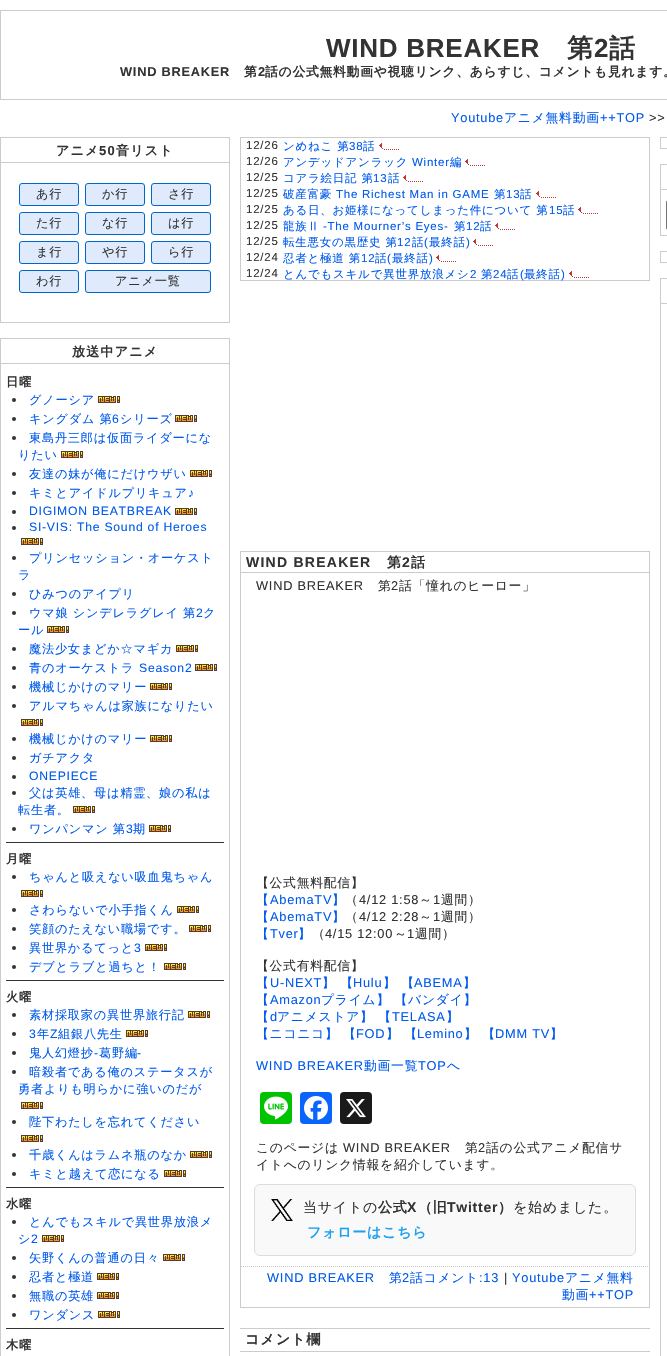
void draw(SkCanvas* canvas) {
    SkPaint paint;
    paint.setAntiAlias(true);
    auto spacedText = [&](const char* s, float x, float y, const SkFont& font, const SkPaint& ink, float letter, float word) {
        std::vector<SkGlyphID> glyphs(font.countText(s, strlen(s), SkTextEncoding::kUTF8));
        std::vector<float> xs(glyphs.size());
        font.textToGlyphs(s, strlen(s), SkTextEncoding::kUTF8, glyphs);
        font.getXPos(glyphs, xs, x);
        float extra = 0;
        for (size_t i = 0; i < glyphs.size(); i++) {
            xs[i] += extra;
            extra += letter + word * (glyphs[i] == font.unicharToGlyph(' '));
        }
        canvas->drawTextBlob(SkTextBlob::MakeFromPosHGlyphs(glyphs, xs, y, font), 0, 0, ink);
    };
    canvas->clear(0xFFFFFFFF);
    paint.setStyle(SkPaint::kStroke_Style);
    paint.setStrokeWidth(1);
    paint.setColor(0xFFCCCCCC);
    canvas->drawRect(SkRect::MakeXYWH(0.5f, 10.5f, 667, 89), paint);
    SkFont font1(fontMgr->matchFamilyStyle("Liberation Sans", SkFontStyle::Bold()), 26);
    font1.setSubpixel(true);
    paint.setStyle(SkPaint::kFill_Style);
    paint.setColor(0xFF333333);
    spacedText("WIND BREAKER", 326, 57, font1, paint, 0.75f, 0);
    SkFont font2(fontMgr->matchFamilyStyle("WenQuanYi Zen Hei", SkFontStyle::Bold()), 26);
    font2.setSubpixel(true);
    spacedText("第", 567, 57, font2, paint, 0.75f, 0);
    spacedText("2", 594, 57, font1, paint, 0.75f, 0);
    spacedText("話", 609, 57, font2, paint, 0.75f, 0);
    SkFont font3(fontMgr->matchFamilyStyle("Liberation Sans", SkFontStyle::Bold()), 12.8f);
    font3.setSubpixel(true);
    spacedText("WIND BREAKER", 120, 76, font3, paint, 0.75f, 0);
    SkFont font4(fontMgr->matchFamilyStyle("WenQuanYi Zen Hei", SkFontStyle::Bold()), 12.8f);
    font4.setSubpixel(true);
    spacedText("第", 244, 76, font4, paint, 0.75f, 0);
    spacedText("2", 258, 76, font3, paint, 0.75f, 0);
    spacedText("話の公式無料動画や視聴リンク、あらすじ、コメントも見れます。", 265, 76, font4, paint, 0.75f, 0);
    SkFont font5(fontMgr->matchFamilyStyle("Liberation Sans", SkFontStyle::Normal()), 12.8f);
    font5.setSubpixel(true);
    paint.setColor(0xFF005AED);
    spacedText("Youtube", 451, 122, font5, paint, 0.75f, 0);
    SkFont font6(fontMgr->matchFamilyStyle("WenQuanYi Zen Hei", SkFontStyle(500, SkFontStyle::kNormal_Width, SkFontStyle::kUpright_Slant)), 12.8f);
    font6.setSubpixel(true);
    spacedText("アニメ無料動画", 504, 122, font6, paint, 0.75f, 0);
    spacedText("++TOP", 600, 122, font5, paint, 0.75f, 0);
    paint.setColor(0xFF333333);
    spacedText(">>", 649, 122, font5, paint, 0.75f, 0);
    paint.setStyle(SkPaint::kStroke_Style);
    paint.setColor(0xFFCCCCCC);
    canvas->drawRect(SkRect::MakeXYWH(0.5f, 137.5f, 229, 185), paint);
    paint.setStyle(SkPaint::kFill_Style);
    canvas->drawRect(SkRect::MakeXYWH(1, 162, 228, 1), paint);
    SkFont font7(fontMgr->matchFamilyStyle("WenQuanYi Zen Hei", SkFontStyle::Bold()), 13);
    font7.setSubpixel(true);
    paint.setColor(0xFF333333);
    spacedText("アニメ", 56, 155, font7, paint, 1.25f, 0);
    SkFont font8(fontMgr->matchFamilyStyle("Liberation Sans", SkFontStyle::Bold()), 13);
    font8.setSubpixel(true);
    spacedText("50", 99, 155, font8, paint, 1.25f, 0);
    spacedText("音リスト", 116, 155, font7, paint, 1.25f, 0);
    paint.setColor(0xFFDFEBFD);
    canvas->drawRoundRect(SkRect::MakeXYWH(19.5f, 183.5f, 59, 22), 2.5f, 2.5f, paint);
    paint.setStyle(SkPaint::kStroke_Style);
    paint.setColor(0xFF0066CC);
    canvas->drawRoundRect(SkRect::MakeXYWH(19.5f, 183.5f, 59, 22), 2.5f, 2.5f, paint);
    SkFont font9(fontMgr->matchFamilyStyle("WenQuanYi Zen Hei", SkFontStyle(500, SkFontStyle::kNormal_Width, SkFontStyle::kUpright_Slant)), 12.2f);
    font9.setSubpixel(true);
    paint.setStyle(SkPaint::kFill_Style);
    paint.setColor(0xFF333333);
    spacedText("あ行", 36, 198, font9, paint, 0.75f, 0);
    paint.setColor(0xFFDFEBFD);
    canvas->drawRoundRect(SkRect::MakeXYWH(85.5f, 183.5f, 59, 22), 2.5f, 2.5f, paint);
    paint.setStyle(SkPaint::kStroke_Style);
    paint.setColor(0xFF0066CC);
    canvas->drawRoundRect(SkRect::MakeXYWH(85.5f, 183.5f, 59, 22), 2.5f, 2.5f, paint);
    paint.setStyle(SkPaint::kFill_Style);
    paint.setColor(0xFF333333);
    spacedText("か行", 102, 198, font9, paint, 0.75f, 0);
    paint.setColor(0xFFDFEBFD);
    canvas->drawRoundRect(SkRect::MakeXYWH(151.5f, 183.5f, 59, 22), 2.5f, 2.5f, paint);
    paint.setStyle(SkPaint::kStroke_Style);
    paint.setColor(0xFF0066CC);
    canvas->drawRoundRect(SkRect::MakeXYWH(151.5f, 183.5f, 59, 22), 2.5f, 2.5f, paint);
    paint.setStyle(SkPaint::kFill_Style);
    paint.setColor(0xFF333333);
    spacedText("さ行", 168, 198, font9, paint, 0.75f, 0);
    paint.setColor(0xFFDFEBFD);
    canvas->drawRoundRect(SkRect::MakeXYWH(19.5f, 212.5f, 59, 22), 2.5f, 2.5f, paint);
    paint.setStyle(SkPaint::kStroke_Style);
    paint.setColor(0xFF0066CC);
    canvas->drawRoundRect(SkRect::MakeXYWH(19.5f, 212.5f, 59, 22), 2.5f, 2.5f, paint);
    paint.setStyle(SkPaint::kFill_Style);
    paint.setColor(0xFF333333);
    spacedText("た行", 36, 227, font9, paint, 0.75f, 0);
    paint.setColor(0xFFDFEBFD);
    canvas->drawRoundRect(SkRect::MakeXYWH(85.5f, 212.5f, 59, 22), 2.5f, 2.5f, paint);
    paint.setStyle(SkPaint::kStroke_Style);
    paint.setColor(0xFF0066CC);
    canvas->drawRoundRect(SkRect::MakeXYWH(85.5f, 212.5f, 59, 22), 2.5f, 2.5f, paint);
    paint.setStyle(SkPaint::kFill_Style);
    paint.setColor(0xFF333333);
    spacedText("な行", 102, 227, font9, paint, 0.75f, 0);
    paint.setColor(0xFFDFEBFD);
    canvas->drawRoundRect(SkRect::MakeXYWH(151.5f, 212.5f, 59, 22), 2.5f, 2.5f, paint);
    paint.setStyle(SkPaint::kStroke_Style);
    paint.setColor(0xFF0066CC);
    canvas->drawRoundRect(SkRect::MakeXYWH(151.5f, 212.5f, 59, 22), 2.5f, 2.5f, paint);
    paint.setStyle(SkPaint::kFill_Style);
    paint.setColor(0xFF333333);
    spacedText("は行", 168, 227, font9, paint, 0.75f, 0);
    paint.setColor(0xFFDFEBFD);
    canvas->drawRoundRect(SkRect::MakeXYWH(19.5f, 241.5f, 59, 22), 2.5f, 2.5f, paint);
    paint.setStyle(SkPaint::kStroke_Style);
    paint.setColor(0xFF0066CC);
    canvas->drawRoundRect(SkRect::MakeXYWH(19.5f, 241.5f, 59, 22), 2.5f, 2.5f, paint);
    paint.setStyle(SkPaint::kFill_Style);
    paint.setColor(0xFF333333);
    spacedText("ま行", 36, 256, font9, paint, 0.75f, 0);
    paint.setColor(0xFFDFEBFD);
    canvas->drawRoundRect(SkRect::MakeXYWH(85.5f, 241.5f, 59, 22), 2.5f, 2.5f, paint);
    paint.setStyle(SkPaint::kStroke_Style);
    paint.setColor(0xFF0066CC);
    canvas->drawRoundRect(SkRect::MakeXYWH(85.5f, 241.5f, 59, 22), 2.5f, 2.5f, paint);
    paint.setStyle(SkPaint::kFill_Style);
    paint.setColor(0xFF333333);
    spacedText("や行", 102, 256, font9, paint, 0.75f, 0);
    paint.setColor(0xFFDFEBFD);
    canvas->drawRoundRect(SkRect::MakeXYWH(151.5f, 241.5f, 59, 22), 2.5f, 2.5f, paint);
    paint.setStyle(SkPaint::kStroke_Style);
    paint.setColor(0xFF0066CC);
    canvas->drawRoundRect(SkRect::MakeXYWH(151.5f, 241.5f, 59, 22), 2.5f, 2.5f, paint);
    paint.setStyle(SkPaint::kFill_Style);
    paint.setColor(0xFF333333);
    spacedText("ら行", 168, 256, font9, paint, 0.75f, 0);
    paint.setColor(0xFFDFEBFD);
    canvas->drawRoundRect(SkRect::MakeXYWH(19.5f, 270.5f, 59, 22), 2.5f, 2.5f, paint);
    paint.setStyle(SkPaint::kStroke_Style);
    paint.setColor(0xFF0066CC);
    canvas->drawRoundRect(SkRect::MakeXYWH(19.5f, 270.5f, 59, 22), 2.5f, 2.5f, paint);
    paint.setStyle(SkPaint::kFill_Style);
    paint.setColor(0xFF333333);
    spacedText("わ行", 36, 285, font9, paint, 0.75f, 0);
    paint.setColor(0xFFDFEBFD);
    canvas->drawRoundRect(SkRect::MakeXYWH(85.5f, 270.5f, 125, 22), 2.5f, 2.5f, paint);
    paint.setStyle(SkPaint::kStroke_Style);
    paint.setColor(0xFF0066CC);
    canvas->drawRoundRect(SkRect::MakeXYWH(85.5f, 270.5f, 125, 22), 2.5f, 2.5f, paint);
    paint.setStyle(SkPaint::kFill_Style);
    paint.setColor(0xFF333333);
    spacedText("アニメ一覧", 115, 285, font9, paint, 0.75f, 0);
    paint.setStyle(SkPaint::kStroke_Style);
    paint.setColor(0xFFCCCCCC);
    canvas->drawRect(SkRect::MakeXYWH(0.5f, 338.5f, 229, 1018), paint);
    paint.setStyle(SkPaint::kFill_Style);
    canvas->drawRect(SkRect::MakeXYWH(1, 363, 228, 1), paint);
    paint.setColor(0xFF333333);
    spacedText("放送中アニメ", 72, 356, font7, paint, 1.25f, 0);
    SkFont font10(fontMgr->matchFamilyStyle("WenQuanYi Zen Hei", SkFontStyle::Bold()), 12.2f);
    font10.setSubpixel(true);
    spacedText("日曜", 6, 386, font10, paint, 0.75f, 0);
    canvas->drawCircle(14, 400, 2, paint);
    paint.setColor(0xFF005AED);
    spacedText("グノーシア", 29, 404, font9, paint, 0.75f, 0);
    canvas->drawImageRect(SkImages::DeferredFromEncodedData(SkData::MakeFromFileName("img1.png")), SkRect::MakeXYWH(98, 396, 22, 7), SkSamplingOptions());
    paint.setColor(0xFF333333);
    canvas->drawCircle(14, 419, 2, paint);
    paint.setColor(0xFF005AED);
    spacedText("キングダム 第", 29, 423, font9, paint, 0.75f, 0);
    SkFont font11(fontMgr->matchFamilyStyle("Liberation Sans", SkFontStyle::Normal()), 12.2f);
    font11.setSubpixel(true);
    spacedText("6", 112, 423, font11, paint, 0.75f, 0);
    spacedText("シリーズ", 120, 423, font9, paint, 0.75f, 0);
    canvas->drawImageRect(SkImages::DeferredFromEncodedData(SkData::MakeFromFileName("img1.png")), SkRect::MakeXYWH(175, 415, 22, 7), SkSamplingOptions());
    paint.setColor(0xFF333333);
    canvas->drawCircle(14, 438, 2, paint);
    paint.setColor(0xFF005AED);
    spacedText("東島丹三郎は仮面ライダーにな", 29, 442, font9, paint, 0.75f, 0);
    spacedText("りたい", 18, 459, font9, paint, 0.75f, 0);
    canvas->drawImageRect(SkImages::DeferredFromEncodedData(SkData::MakeFromFileName("img1.png")), SkRect::MakeXYWH(61, 451, 22, 7), SkSamplingOptions());
    paint.setColor(0xFF333333);
    canvas->drawCircle(14, 474, 2, paint);
    paint.setColor(0xFF005AED);
    spacedText("友達の妹が俺にだけウザい", 29, 478, font9, paint, 0.75f, 0);
    canvas->drawImageRect(SkImages::DeferredFromEncodedData(SkData::MakeFromFileName("img1.png")), SkRect::MakeXYWH(190, 470, 22, 7), SkSamplingOptions());
    paint.setColor(0xFF333333);
    canvas->drawCircle(14, 493, 2, paint);
    paint.setColor(0xFF005AED);
    spacedText("キミとアイドルプリキュア", 29, 497, font9, paint, 0.75f, 0);
    spacedText("♪", 188, 497, font11, paint, 0.75f, 0);
    paint.setColor(0xFF333333);
    canvas->drawCircle(14, 512, 2, paint);
    paint.setColor(0xFF005AED);
    spacedText("DIGIMON BEATBREAK", 29, 515, font11, paint, 0.75f, 0);
    canvas->drawImageRect(SkImages::DeferredFromEncodedData(SkData::MakeFromFileName("img1.png")), SkRect::MakeXYWH(175, 508, 22, 7), SkSamplingOptions());
    paint.setColor(0xFF333333);
    canvas->drawCircle(14, 528, 2, paint);
    paint.setColor(0xFF005AED);
    spacedText("SI-VIS: The Sound of Heroes", 29, 531, font11, paint, 0.75f, 0);
    canvas->drawImageRect(SkImages::DeferredFromEncodedData(SkData::MakeFromFileName("img1.png")), SkRect::MakeXYWH(21, 538, 22, 7), SkSamplingOptions());
    paint.setColor(0xFF333333);
    canvas->drawCircle(14, 558, 2, paint);
    paint.setColor(0xFF005AED);
    spacedText("プリンセッション・オーケスト", 29, 562, font9, paint, 0.75f, 0);
    spacedText("ラ", 18, 579, font9, paint, 0.75f, 0);
    paint.setColor(0xFF333333);
    canvas->drawCircle(14, 594, 2, paint);
    paint.setColor(0xFF005AED);
    spacedText("ひみつのアイプリ", 29, 598, font9, paint, 0.75f, 0);
    paint.setColor(0xFF333333);
    canvas->drawCircle(14, 613, 2, paint);
    paint.setColor(0xFF005AED);
    spacedText("ウマ娘 シンデレラグレイ 第", 29, 617, font9, paint, 0.75f, 0);
    spacedText("2", 196, 617, font11, paint, 0.75f, 0);
    spacedText("ク", 203, 617, font9, paint, 0.75f, 0);
    spacedText("ール", 18, 634, font9, paint, 0.75f, 0);
    canvas->drawImageRect(SkImages::DeferredFromEncodedData(SkData::MakeFromFileName("img1.png")), SkRect::MakeXYWH(47, 626, 22, 7), SkSamplingOptions());
    paint.setColor(0xFF333333);
    canvas->drawCircle(14, 649, 2, paint);
    paint.setColor(0xFF005AED);
    spacedText("魔法少女まどか☆マギカ", 29, 653, font9, paint, 0.75f, 0);
    canvas->drawImageRect(SkImages::DeferredFromEncodedData(SkData::MakeFromFileName("img1.png")), SkRect::MakeXYWH(176, 645, 22, 7), SkSamplingOptions());
    paint.setColor(0xFF333333);
    canvas->drawCircle(14, 668, 2, paint);
    paint.setColor(0xFF005AED);
    spacedText("青のオーケストラ", 29, 672, font9, paint, 0.75f, 0);
    spacedText("Season2", 139, 672, font11, paint, 0.75f, 0);
    canvas->drawImageRect(SkImages::DeferredFromEncodedData(SkData::MakeFromFileName("img1.png")), SkRect::MakeXYWH(195, 664, 22, 7), SkSamplingOptions());
    paint.setColor(0xFF333333);
    canvas->drawCircle(14, 687, 2, paint);
    paint.setColor(0xFF005AED);
    spacedText("機械じかけのマリー", 29, 691, font9, paint, 0.75f, 0);
    canvas->drawImageRect(SkImages::DeferredFromEncodedData(SkData::MakeFromFileName("img1.png")), SkRect::MakeXYWH(150, 683, 22, 7), SkSamplingOptions());
    paint.setColor(0xFF333333);
    canvas->drawCircle(14, 706, 2, paint);
    paint.setColor(0xFF005AED);
    spacedText("アルマちゃんは家族になりたい", 29, 710, font9, paint, 0.75f, 0);
    canvas->drawImageRect(SkImages::DeferredFromEncodedData(SkData::MakeFromFileName("img1.png")), SkRect::MakeXYWH(21, 719, 22, 7), SkSamplingOptions());
    paint.setColor(0xFF333333);
    canvas->drawCircle(14, 739, 2, paint);
    paint.setColor(0xFF005AED);
    spacedText("機械じかけのマリー", 29, 743, font9, paint, 0.75f, 0);
    canvas->drawImageRect(SkImages::DeferredFromEncodedData(SkData::MakeFromFileName("img1.png")), SkRect::MakeXYWH(150, 735, 22, 7), SkSamplingOptions());
    paint.setColor(0xFF333333);
    canvas->drawCircle(14, 758, 2, paint);
    paint.setColor(0xFF005AED);
    spacedText("ガチアクタ", 29, 762, font9, paint, 0.75f, 0);
    paint.setColor(0xFF333333);
    canvas->drawCircle(14, 777, 2, paint);
    paint.setColor(0xFF005AED);
    spacedText("ONEPIECE", 29, 780, font11, paint, 0.75f, 0);
    paint.setColor(0xFF333333);
    canvas->drawCircle(14, 793, 2, paint);
    paint.setColor(0xFF005AED);
    spacedText("父は英雄、母は精霊、娘の私は", 29, 797, font9, paint, 0.75f, 0);
    spacedText("転生者。", 18, 814, font9, paint, 0.75f, 0);
    canvas->drawImageRect(SkImages::DeferredFromEncodedData(SkData::MakeFromFileName("img1.png")), SkRect::MakeXYWH(73, 806, 22, 7), SkSamplingOptions());
    paint.setColor(0xFF333333);
    canvas->drawRect(SkRect::MakeXYWH(6, 842, 218, 1), paint);
    canvas->drawCircle(14, 829, 2, paint);
    paint.setColor(0xFF005AED);
    spacedText("ワンパンマン 第", 29, 833, font9, paint, 0.75f, 0);
    spacedText("3", 126, 833, font11, paint, 0.75f, 0);
    spacedText("期", 133, 833, font9, paint, 0.75f, 0);
    canvas->drawImageRect(SkImages::DeferredFromEncodedData(SkData::MakeFromFileName("img1.png")), SkRect::MakeXYWH(149, 825, 22, 7), SkSamplingOptions());
    paint.setColor(0xFF333333);
    spacedText("月曜", 6, 863, font10, paint, 0.75f, 0);
    canvas->drawCircle(14, 877, 2, paint);
    paint.setColor(0xFF005AED);
    spacedText("ちゃんと吸えない吸血鬼ちゃん", 29, 881, font9, paint, 0.75f, 0);
    canvas->drawImageRect(SkImages::DeferredFromEncodedData(SkData::MakeFromFileName("img1.png")), SkRect::MakeXYWH(21, 890, 22, 7), SkSamplingOptions());
    paint.setColor(0xFF333333);
    canvas->drawCircle(14, 910, 2, paint);
    paint.setColor(0xFF005AED);
    spacedText("さわらないで小手指くん", 29, 914, font9, paint, 0.75f, 0);
    canvas->drawImageRect(SkImages::DeferredFromEncodedData(SkData::MakeFromFileName("img1.png")), SkRect::MakeXYWH(177, 906, 22, 7), SkSamplingOptions());
    paint.setColor(0xFF333333);
    canvas->drawCircle(14, 929, 2, paint);
    paint.setColor(0xFF005AED);
    spacedText("笑顔のたえない職場です。", 29, 933, font9, paint, 0.75f, 0);
    canvas->drawImageRect(SkImages::DeferredFromEncodedData(SkData::MakeFromFileName("img1.png")), SkRect::MakeXYWH(189, 925, 22, 7), SkSamplingOptions());
    paint.setColor(0xFF333333);
    canvas->drawCircle(14, 948, 2, paint);
    paint.setColor(0xFF005AED);
    spacedText("異世界かるてっと", 29, 952, font9, paint, 0.75f, 0);
    spacedText("3", 134, 952, font11, paint, 0.75f, 0);
    canvas->drawImageRect(SkImages::DeferredFromEncodedData(SkData::MakeFromFileName("img1.png")), SkRect::MakeXYWH(145, 944, 22, 7), SkSamplingOptions());
    paint.setColor(0xFF333333);
    canvas->drawRect(SkRect::MakeXYWH(6, 980, 218, 1), paint);
    canvas->drawCircle(14, 967, 2, paint);
    paint.setColor(0xFF005AED);
    spacedText("デブとラブと過ちと！", 29, 971, font9, paint, 0.75f, 0);
    canvas->drawImageRect(SkImages::DeferredFromEncodedData(SkData::MakeFromFileName("img1.png")), SkRect::MakeXYWH(164, 963, 22, 7), SkSamplingOptions());
    paint.setColor(0xFF333333);
    spacedText("火曜", 6, 1001, font10, paint, 0.75f, 0);
    canvas->drawCircle(14, 1015, 2, paint);
    paint.setColor(0xFF005AED);
    spacedText("素材採取家の異世界旅行記", 29, 1019, font9, paint, 0.75f, 0);
    canvas->drawImageRect(SkImages::DeferredFromEncodedData(SkData::MakeFromFileName("img1.png")), SkRect::MakeXYWH(188, 1011, 22, 7), SkSamplingOptions());
    paint.setColor(0xFF333333);
    canvas->drawCircle(14, 1034, 2, paint);
    paint.setColor(0xFF005AED);
    spacedText("3", 29, 1038, font11, paint, 0.75f, 0);
    spacedText("年", 37, 1038, font9, paint, 0.75f, 0);
    spacedText("Z", 50, 1038, font11, paint, 0.75f, 0);
    spacedText("組銀八先生", 58, 1038, font9, paint, 0.75f, 0);
    canvas->drawImageRect(SkImages::DeferredFromEncodedData(SkData::MakeFromFileName("img1.png")), SkRect::MakeXYWH(126, 1030, 22, 7), SkSamplingOptions());
    paint.setColor(0xFF333333);
    canvas->drawCircle(14, 1053, 2, paint);
    paint.setColor(0xFF005AED);
    spacedText("鬼人幻燈抄", 29, 1057, font9, paint, 0.75f, 0);
    spacedText("-", 94, 1057, font11, paint, 0.75f, 0);
    spacedText("葛野編", 99, 1057, font9, paint, 0.75f, 0);
    spacedText("-", 137, 1057, font11, paint, 0.75f, 0);
    paint.setColor(0xFF333333);
    canvas->drawCircle(14, 1072, 2, paint);
    paint.setColor(0xFF005AED);
    spacedText("暗殺者である俺のステータスが", 29, 1076, font9, paint, 0.75f, 0);
    spacedText("勇者よりも明らかに強いのだが", 18, 1093, font9, paint, 0.75f, 0);
    canvas->drawImageRect(SkImages::DeferredFromEncodedData(SkData::MakeFromFileName("img1.png")), SkRect::MakeXYWH(21, 1102, 22, 7), SkSamplingOptions());
    paint.setColor(0xFF333333);
    canvas->drawCircle(14, 1122, 2, paint);
    paint.setColor(0xFF005AED);
    spacedText("陛下わたしを忘れてください", 29, 1126, font9, paint, 0.75f, 0);
    canvas->drawImageRect(SkImages::DeferredFromEncodedData(SkData::MakeFromFileName("img1.png")), SkRect::MakeXYWH(21, 1135, 22, 7), SkSamplingOptions());
    paint.setColor(0xFF333333);
    canvas->drawCircle(14, 1155, 2, paint);
    paint.setColor(0xFF005AED);
    spacedText("千歳くんはラムネ瓶のなか", 29, 1159, font9, paint, 0.75f, 0);
    canvas->drawImageRect(SkImages::DeferredFromEncodedData(SkData::MakeFromFileName("img1.png")), SkRect::MakeXYWH(190, 1151, 22, 7), SkSamplingOptions());
    paint.setColor(0xFF333333);
    canvas->drawRect(SkRect::MakeXYWH(6, 1187, 218, 1), paint);
    canvas->drawCircle(14, 1174, 2, paint);
    paint.setColor(0xFF005AED);
    spacedText("キミと越えて恋になる", 29, 1178, font9, paint, 0.75f, 0);
    canvas->drawImageRect(SkImages::DeferredFromEncodedData(SkData::MakeFromFileName("img1.png")), SkRect::MakeXYWH(164, 1170, 22, 7), SkSamplingOptions());
    paint.setColor(0xFF333333);
    spacedText("水曜", 6, 1208, font10, paint, 0.75f, 0);
    canvas->drawCircle(14, 1222, 2, paint);
    paint.setColor(0xFF005AED);
    spacedText("とんでもスキルで異世界放浪メ", 29, 1226, font9, paint, 0.75f, 0);
    spacedText("シ", 18, 1243, font9, paint, 0.75f, 0);
    spacedText("2", 31, 1243, font11, paint, 0.75f, 0);
    canvas->drawImageRect(SkImages::DeferredFromEncodedData(SkData::MakeFromFileName("img1.png")), SkRect::MakeXYWH(42, 1235, 22, 7), SkSamplingOptions());
    paint.setColor(0xFF333333);
    canvas->drawCircle(14, 1258, 2, paint);
    paint.setColor(0xFF005AED);
    spacedText("矢野くんの普通の日々", 29, 1262, font9, paint, 0.75f, 0);
    canvas->drawImageRect(SkImages::DeferredFromEncodedData(SkData::MakeFromFileName("img1.png")), SkRect::MakeXYWH(163, 1254, 22, 7), SkSamplingOptions());
    paint.setColor(0xFF333333);
    canvas->drawCircle(14, 1277, 2, paint);
    paint.setColor(0xFF005AED);
    spacedText("忍者と極道", 29, 1281, font9, paint, 0.75f, 0);
    canvas->drawImageRect(SkImages::DeferredFromEncodedData(SkData::MakeFromFileName("img1.png")), SkRect::MakeXYWH(97, 1273, 22, 7), SkSamplingOptions());
    paint.setColor(0xFF333333);
    canvas->drawCircle(14, 1296, 2, paint);
    paint.setColor(0xFF005AED);
    spacedText("無職の英雄", 29, 1300, font9, paint, 0.75f, 0);
    canvas->drawImageRect(SkImages::DeferredFromEncodedData(SkData::MakeFromFileName("img1.png")), SkRect::MakeXYWH(97, 1292, 22, 7), SkSamplingOptions());
    paint.setColor(0xFF333333);
    canvas->drawRect(SkRect::MakeXYWH(6, 1328, 218, 1), paint);
    canvas->drawCircle(14, 1315, 2, paint);
    paint.setColor(0xFF005AED);
    spacedText("ワンダンス", 29, 1319, font9, paint, 0.75f, 0);
    canvas->drawImageRect(SkImages::DeferredFromEncodedData(SkData::MakeFromFileName("img1.png")), SkRect::MakeXYWH(98, 1311, 22, 7), SkSamplingOptions());
    paint.setColor(0xFF333333);
    spacedText("木曜", 6, 1349, font10, paint, 0.75f, 0);
    paint.setStyle(SkPaint::kStroke_Style);
    paint.setColor(0xFFCCCCCC);
    canvas->drawRect(SkRect::MakeXYWH(240.5f, 137.5f, 409, 143), paint);
    SkFont font12(fontMgr->matchFamilyStyle("Liberation Sans", SkFontStyle::Normal()), 11.5f);
    font12.setSubpixel(true);
    paint.setStyle(SkPaint::kFill_Style);
    paint.setColor(0xFF333333);
    spacedText("12/26", 246, 149, font12, paint, 0.75f, 0);
    SkFont font13(fontMgr->matchFamilyStyle("WenQuanYi Zen Hei", SkFontStyle(500, SkFontStyle::kNormal_Width, SkFontStyle::kUpright_Slant)), 11.5f);
    font13.setSubpixel(true);
    paint.setColor(0xFF005AED);
    spacedText("ンめねこ 第", 283, 150, font13, paint, 0.75f, 0);
    spacedText("38", 349, 150, font12, paint, 0.75f, 0);
    spacedText("話", 363, 150, font13, paint, 0.75f, 0);
    canvas->drawImageRect(SkImages::DeferredFromEncodedData(SkData::MakeFromFileName("img2.png")), SkRect::MakeXYWH(379, 143, 20, 7), SkSamplingOptions());
    paint.setColor(0xFF333333);
    spacedText("12/26", 246, 165, font12, paint, 0.75f, 0);
    paint.setColor(0xFF005AED);
    spacedText("アンデッドアンラック", 283, 166, font13, paint, 0.75f, 0);
    spacedText("Winter", 412, 166, font12, paint, 0.75f, 0);
    spacedText("編", 450, 166, font13, paint, 0.75f, 0);
    canvas->drawImageRect(SkImages::DeferredFromEncodedData(SkData::MakeFromFileName("img2.png")), SkRect::MakeXYWH(465, 159, 20, 7), SkSamplingOptions());
    paint.setColor(0xFF333333);
    spacedText("12/25", 246, 181, font12, paint, 0.75f, 0);
    paint.setColor(0xFF005AED);
    spacedText("コアラ絵日記 第", 283, 182, font13, paint, 0.75f, 0);
    spacedText("13", 373, 182, font12, paint, 0.75f, 0);
    spacedText("話", 388, 182, font13, paint, 0.75f, 0);
    canvas->drawImageRect(SkImages::DeferredFromEncodedData(SkData::MakeFromFileName("img2.png")), SkRect::MakeXYWH(403, 175, 20, 7), SkSamplingOptions());
    paint.setColor(0xFF333333);
    spacedText("12/25", 246, 197, font12, paint, 0.75f, 0);
    paint.setColor(0xFF005AED);
    spacedText("破産富豪", 283, 198, font13, paint, 0.75f, 0);
    spacedText("The Richest Man in GAME", 336, 198, font12, paint, 0.75f, 0);
    spacedText("第", 494, 198, font13, paint, 0.75f, 0);
    spacedText("13", 506, 198, font12, paint, 0.75f, 0);
    spacedText("話", 520, 198, font13, paint, 0.75f, 0);
    canvas->drawImageRect(SkImages::DeferredFromEncodedData(SkData::MakeFromFileName("img2.png")), SkRect::MakeXYWH(536, 191, 20, 7), SkSamplingOptions());
    paint.setColor(0xFF333333);
    spacedText("12/25", 246, 213, font12, paint, 0.75f, 0);
    paint.setColor(0xFF005AED);
    spacedText("ある日、お姫様になってしまった件について 第", 283, 214, font13, paint, 0.75f, 0);
    spacedText("15", 549, 214, font12, paint, 0.75f, 0);
    spacedText("話", 563, 214, font13, paint, 0.75f, 0);
    canvas->drawImageRect(SkImages::DeferredFromEncodedData(SkData::MakeFromFileName("img2.png")), SkRect::MakeXYWH(578, 207, 20, 7), SkSamplingOptions());
    paint.setColor(0xFF333333);
    spacedText("12/25", 246, 229, font12, paint, 0.75f, 0);
    paint.setColor(0xFF005AED);
    spacedText("龍族Ⅱ", 283, 230, font13, paint, 0.75f, 0);
    spacedText("-The Mourner’s Eyes-", 323, 230, font12, paint, 0.75f, 0);
    spacedText("第", 454, 230, font13, paint, 0.75f, 0);
    spacedText("12", 466, 230, font12, paint, 0.75f, 0);
    spacedText("話", 480, 230, font13, paint, 0.75f, 0);
    canvas->drawImageRect(SkImages::DeferredFromEncodedData(SkData::MakeFromFileName("img2.png")), SkRect::MakeXYWH(495, 223, 20, 7), SkSamplingOptions());
    paint.setColor(0xFF333333);
    spacedText("12/25", 246, 245, font12, paint, 0.75f, 0);
    paint.setColor(0xFF005AED);
    spacedText("転生悪女の黒歴史 第", 283, 246, font13, paint, 0.75f, 0);
    spacedText("12", 397, 246, font12, paint, 0.75f, 0);
    spacedText("話", 412, 246, font13, paint, 0.75f, 0);
    spacedText("(", 424, 246, font12, paint, 0.75f, 0);
    spacedText("最終話", 429, 246, font13, paint, 0.75f, 0);
    spacedText(")", 466, 246, font12, paint, 0.75f, 0);
    canvas->drawImageRect(SkImages::DeferredFromEncodedData(SkData::MakeFromFileName("img2.png")), SkRect::MakeXYWH(473, 239, 20, 7), SkSamplingOptions());
    paint.setColor(0xFF333333);
    spacedText("12/24", 246, 261, font12, paint, 0.75f, 0);
    paint.setColor(0xFF005AED);
    spacedText("忍者と極道 第", 283, 262, font13, paint, 0.75f, 0);
    spacedText("12", 361, 262, font12, paint, 0.75f, 0);
    spacedText("話", 375, 262, font13, paint, 0.75f, 0);
    spacedText("(", 387, 262, font12, paint, 0.75f, 0);
    spacedText("最終話", 392, 262, font13, paint, 0.75f, 0);
    spacedText(")", 429, 262, font12, paint, 0.75f, 0);
    canvas->drawImageRect(SkImages::DeferredFromEncodedData(SkData::MakeFromFileName("img2.png")), SkRect::MakeXYWH(436, 255, 20, 7), SkSamplingOptions());
    paint.setColor(0xFF333333);
    spacedText("12/24", 246, 277, font12, paint, 0.75f, 0);
    paint.setColor(0xFF005AED);
    spacedText("とんでもスキルで異世界放浪メシ", 283, 278, font13, paint, 0.75f, 0);
    spacedText("2", 470, 278, font12, paint, 0.75f, 0);
    spacedText("第", 481, 278, font13, paint, 0.75f, 0);
    spacedText("24", 493, 278, font12, paint, 0.75f, 0);
    spacedText("話", 507, 278, font13, paint, 0.75f, 0);
    spacedText("(", 520, 278, font12, paint, 0.75f, 0);
    spacedText("最終話", 524, 278, font13, paint, 0.75f, 0);
    spacedText(")", 561, 278, font12, paint, 0.75f, 0);
    canvas->drawImageRect(SkImages::DeferredFromEncodedData(SkData::MakeFromFileName("img2.png")), SkRect::MakeXYWH(569, 271, 20, 7), SkSamplingOptions());
    paint.setStyle(SkPaint::kStroke_Style);
    paint.setColor(0xFFCCCCCC);
    canvas->drawRect(SkRect::MakeXYWH(240.5f, 551.5f, 409, 756), paint);
    paint.setStyle(SkPaint::kFill_Style);
    canvas->drawRect(SkRect::MakeXYWH(241, 572, 408, 1), paint);
    SkFont font14(fontMgr->matchFamilyStyle("Liberation Sans", SkFontStyle::Bold()), 14);
    font14.setSubpixel(true);
    paint.setColor(0xFF333333);
    spacedText("WIND BREAKER", 246, 567, font14, paint, 1.25f, 0);
    SkFont font15(fontMgr->matchFamilyStyle("WenQuanYi Zen Hei", SkFontStyle::Bold()), 14);
    font15.setSubpixel(true);
    spacedText("第", 387, 567, font15, paint, 1.25f, 0);
    spacedText("2", 402, 567, font14, paint, 1.25f, 0);
    spacedText("話", 411, 567, font15, paint, 1.25f, 0);
    spacedText("WIND BREAKER", 256, 590, font5, paint, 0.75f, 0);
    spacedText("第", 378, 590, font6, paint, 0.75f, 0);
    spacedText("2", 391, 590, font5, paint, 0.75f, 0);
    spacedText("話「憧れのヒーロー」", 399, 590, font6, paint, 0.75f, 0);
    spacedText("【公式無料配信】", 256, 887, font6, paint, 0.75f, 0);
    paint.setColor(0xFF005AED);
    spacedText("【", 256, 904, font6, paint, 0.75f, 0);
    spacedText("AbemaTV", 270, 904, font5, paint, 0.75f, 0);
    spacedText("】", 332, 904, font6, paint, 0.75f, 0);
    paint.setColor(0xFF333333);
    spacedText("（", 345, 904, font6, paint, 0.75f, 0);
    spacedText("4/12 1:58", 359, 904, font5, paint, 0.75f, 0);
    spacedText("～", 419, 904, font6, paint, 0.75f, 0);
    spacedText("1", 433, 904, font5, paint, 0.75f, 0);
    spacedText("週間）", 441, 904, font6, paint, 0.75f, 0);
    paint.setColor(0xFF005AED);
    spacedText("【", 256, 921, font6, paint, 0.75f, 0);
    spacedText("AbemaTV", 270, 921, font5, paint, 0.75f, 0);
    spacedText("】", 332, 921, font6, paint, 0.75f, 0);
    paint.setColor(0xFF333333);
    spacedText("（", 345, 921, font6, paint, 0.75f, 0);
    spacedText("4/12 2:28", 359, 921, font5, paint, 0.75f, 0);
    spacedText("～", 419, 921, font6, paint, 0.75f, 0);
    spacedText("1", 433, 921, font5, paint, 0.75f, 0);
    spacedText("週間）", 441, 921, font6, paint, 0.75f, 0);
    paint.setColor(0xFF005AED);
    spacedText("【", 256, 938, font6, paint, 0.75f, 0);
    spacedText("Tver", 270, 938, font5, paint, 0.75f, 0);
    spacedText("】", 298, 938, font6, paint, 0.75f, 0);
    paint.setColor(0xFF333333);
    spacedText("（", 312, 938, font6, paint, 0.75f, 0);
    spacedText("4/15 12:00", 325, 938, font5, paint, 0.75f, 0);
    spacedText("～", 394, 938, font6, paint, 0.75f, 0);
    spacedText("1", 407, 938, font5, paint, 0.75f, 0);
    spacedText("週間）", 415, 938, font6, paint, 0.75f, 0);
    spacedText("【公式有料配信】", 256, 970, font6, paint, 0.75f, 0);
    paint.setColor(0xFF005AED);
    spacedText("【", 256, 987, font6, paint, 0.75f, 0);
    spacedText("U-NEXT", 270, 987, font5, paint, 0.75f, 0);
    spacedText("】 【", 322, 987, font6, paint, 0.75f, 0);
    spacedText("Hulu", 353, 987, font5, paint, 0.75f, 0);
    spacedText("】 【", 383, 987, font6, paint, 0.75f, 0);
    spacedText("ABEMA", 414, 987, font5, paint, 0.75f, 0);
    spacedText("】", 463, 987, font6, paint, 0.75f, 0);
    spacedText("【", 256, 1004, font6, paint, 0.75f, 0);
    spacedText("Amazon", 270, 1004, font5, paint, 0.75f, 0);
    spacedText("プライム】 【バンダイ】", 321, 1004, font6, paint, 0.75f, 0);
    spacedText("【", 256, 1021, font6, paint, 0.75f, 0);
    spacedText("d", 270, 1021, font5, paint, 0.75f, 0);
    spacedText("アニメストア】 【", 277, 1021, font6, paint, 0.75f, 0);
    spacedText("TELASA", 392, 1021, font5, paint, 0.75f, 0);
    spacedText("】", 446, 1021, font6, paint, 0.75f, 0);
    spacedText("【ニコニコ】 【", 256, 1038, font6, paint, 0.75f, 0);
    spacedText("FOD", 356, 1038, font5, paint, 0.75f, 0);
    spacedText("】 【", 386, 1038, font6, paint, 0.75f, 0);
    spacedText("Lemino", 417, 1038, font5, paint, 0.75f, 0);
    spacedText("】 【", 464, 1038, font6, paint, 0.75f, 0);
    spacedText("DMM TV", 495, 1038, font5, paint, 0.75f, 0);
    spacedText("】", 550, 1038, font6, paint, 0.75f, 0);
    spacedText("WIND BREAKER", 256, 1070, font5, paint, 0.75f, 0);
    spacedText("動画一覧", 364, 1070, font6, paint, 0.75f, 0);
    spacedText("TOP", 418, 1070, font5, paint, 0.75f, 0);
    spacedText("へ", 447, 1070, font6, paint, 0.75f, 0);
    paint.setColor(0xFF00C300);
    canvas->drawRoundRect(SkRect::MakeXYWH(260, 1092, 32, 32), 4, 4, paint);
    canvas->drawImageRect(SkImages::DeferredFromEncodedData(SkData::MakeFromFileName("img3.png")), SkRect::MakeXYWH(264, 1096, 24, 24), SkSamplingOptions());
    paint.setColor(0xFF0866FF);
    canvas->drawRoundRect(SkRect::MakeXYWH(300, 1092, 32, 32), 4, 4, paint);
    canvas->drawImageRect(SkImages::DeferredFromEncodedData(SkData::MakeFromFileName("img4.png")), SkRect::MakeXYWH(304, 1096, 24, 24), SkSamplingOptions());
    paint.setColor(0xFF1A1A1A);
    canvas->drawRoundRect(SkRect::MakeXYWH(340, 1092, 32, 32), 4, 4, paint);
    canvas->drawImageRect(SkImages::DeferredFromEncodedData(SkData::MakeFromFileName("img5.png")), SkRect::MakeXYWH(346, 1099, 20, 19), SkSamplingOptions());
    paint.setColor(0xFF333333);
    spacedText("このページは", 256, 1152, font6, paint, 0.75f, 0);
    spacedText("WIND BREAKER", 343, 1152, font5, paint, 0.75f, 0);
    spacedText("第", 465, 1152, font6, paint, 0.75f, 0);
    spacedText("2", 478, 1152, font5, paint, 0.75f, 0);
    spacedText("話の公式アニメ配信サ", 486, 1152, font6, paint, 0.75f, 0);
    spacedText("イトへのリンク情報を紹介しています。", 256, 1169, font6, paint, 0.75f, 0);
    paint.setColor(0xFFF9F9F9);
    canvas->drawRoundRect(SkRect::MakeXYWH(254.5f, 1184.5f, 381, 71), 5.5f, 5.5f, paint);
    paint.setStyle(SkPaint::kStroke_Style);
    paint.setColor(0xFFDDDDDD);
    canvas->drawRoundRect(SkRect::MakeXYWH(254.5f, 1184.5f, 381, 71), 5.5f, 5.5f, paint);
    canvas->drawImageRect(SkImages::DeferredFromEncodedData(SkData::MakeFromFileName("img6.png")), SkRect::MakeXYWH(271, 1199, 22, 22), SkSamplingOptions());
    SkFont font16(fontMgr->matchFamilyStyle("WenQuanYi Zen Hei", SkFontStyle(500, SkFontStyle::kNormal_Width, SkFontStyle::kUpright_Slant)), 14);
    font16.setSubpixel(true);
    paint.setStyle(SkPaint::kFill_Style);
    paint.setColor(0xFF333333);
    spacedText("当サイトの", 303, 1212, font16, paint, 0.75f, 0);
    spacedText("公式", 378, 1212, font15, paint, 0.75f, 0);
    spacedText("X", 407, 1212, font14, paint, 0.75f, 0);
    spacedText("（旧", 418, 1212, font15, paint, 0.75f, 0);
    spacedText("Twitter", 447, 1212, font14, paint, 0.75f, 0);
    spacedText("）", 498, 1212, font15, paint, 0.75f, 0);
    spacedText("を始めました。", 513, 1212, font16, paint, 0.75f, 0);
    paint.setColor(0xFF1DA1F2);
    spacedText("フォローはこちら", 307, 1237, font15, paint, 0.75f, 0);
    paint.setStyle(SkPaint::kStroke_Style);
    paint.setColor(0xFFCCCCCC);
    paint.setPathEffect(SkDashPathEffect::Make({{1, 1}}, 0));
    canvas->drawPath(SkPathBuilder().moveTo(241, 1266.5f).lineTo(649, 1266.5f).detach(), paint);
    paint.setPathEffect(nullptr);
    paint.setStyle(SkPaint::kFill_Style);
    paint.setColor(0xFF005AED);
    spacedText("WIND BREAKER", 267, 1282, font5, paint, 0.75f, 0);
    spacedText("第", 389, 1282, font6, paint, 0.75f, 0);
    spacedText("2", 402, 1282, font5, paint, 0.75f, 0);
    spacedText("話コメント", 410, 1282, font6, paint, 0.75f, 0);
    spacedText(":13", 479, 1282, font5, paint, 0.75f, 0);
    paint.setColor(0xFF333333);
    spacedText("|", 504, 1282, font5, paint, 0.75f, 0);
    paint.setColor(0xFF005AED);
    spacedText("Youtube", 512, 1282, font5, paint, 0.75f, 0);
    spacedText("アニメ無料", 565, 1282, font6, paint, 0.75f, 0);
    spacedText("動画", 562, 1299, font6, paint, 0.75f, 0);
    spacedText("++TOP", 589, 1299, font5, paint, 0.75f, 0);
    paint.setColor(0xFFCCCCCC);
    canvas->drawRect(SkRect::MakeXYWH(240, 1328, 410, 1), paint);
    canvas->drawRect(SkRect::MakeXYWH(240, 1351, 410, 1), paint);
    paint.setColor(0xFF333333);
    spacedText("コメント欄", 245, 1344, font15, paint, 1, 0);
    paint.setStyle(SkPaint::kStroke_Style);
    paint.setColor(0xFFCCCCCC);
    canvas->drawRect(SkRect::MakeXYWH(660.5f, 137.5f, 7, 11), paint);
    canvas->drawRect(SkRect::MakeXYWH(660.5f, 164.5f, 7, 71), paint);
    paint.setStyle(SkPaint::kFill_Style);
    canvas->drawRect(SkRect::MakeXYWH(661, 189, 6, 1), paint);
    paint.setStyle(SkPaint::kStroke_Style);
    paint.setColor(0xFF767676);
    canvas->drawRoundRect(SkRect::MakeXYWH(666.5f, 200.5f, 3, 29), 1.5f, 1.5f, paint);
    paint.setColor(0xFFCCCCCC);
    canvas->drawRect(SkRect::MakeXYWH(660.5f, 251.5f, 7, 11), paint);
    canvas->drawRect(SkRect::MakeXYWH(660.5f, 278.5f, 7, 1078), paint);
    paint.setStyle(SkPaint::kFill_Style);
    canvas->drawRect(SkRect::MakeXYWH(661, 303, 6, 1), paint);
}
